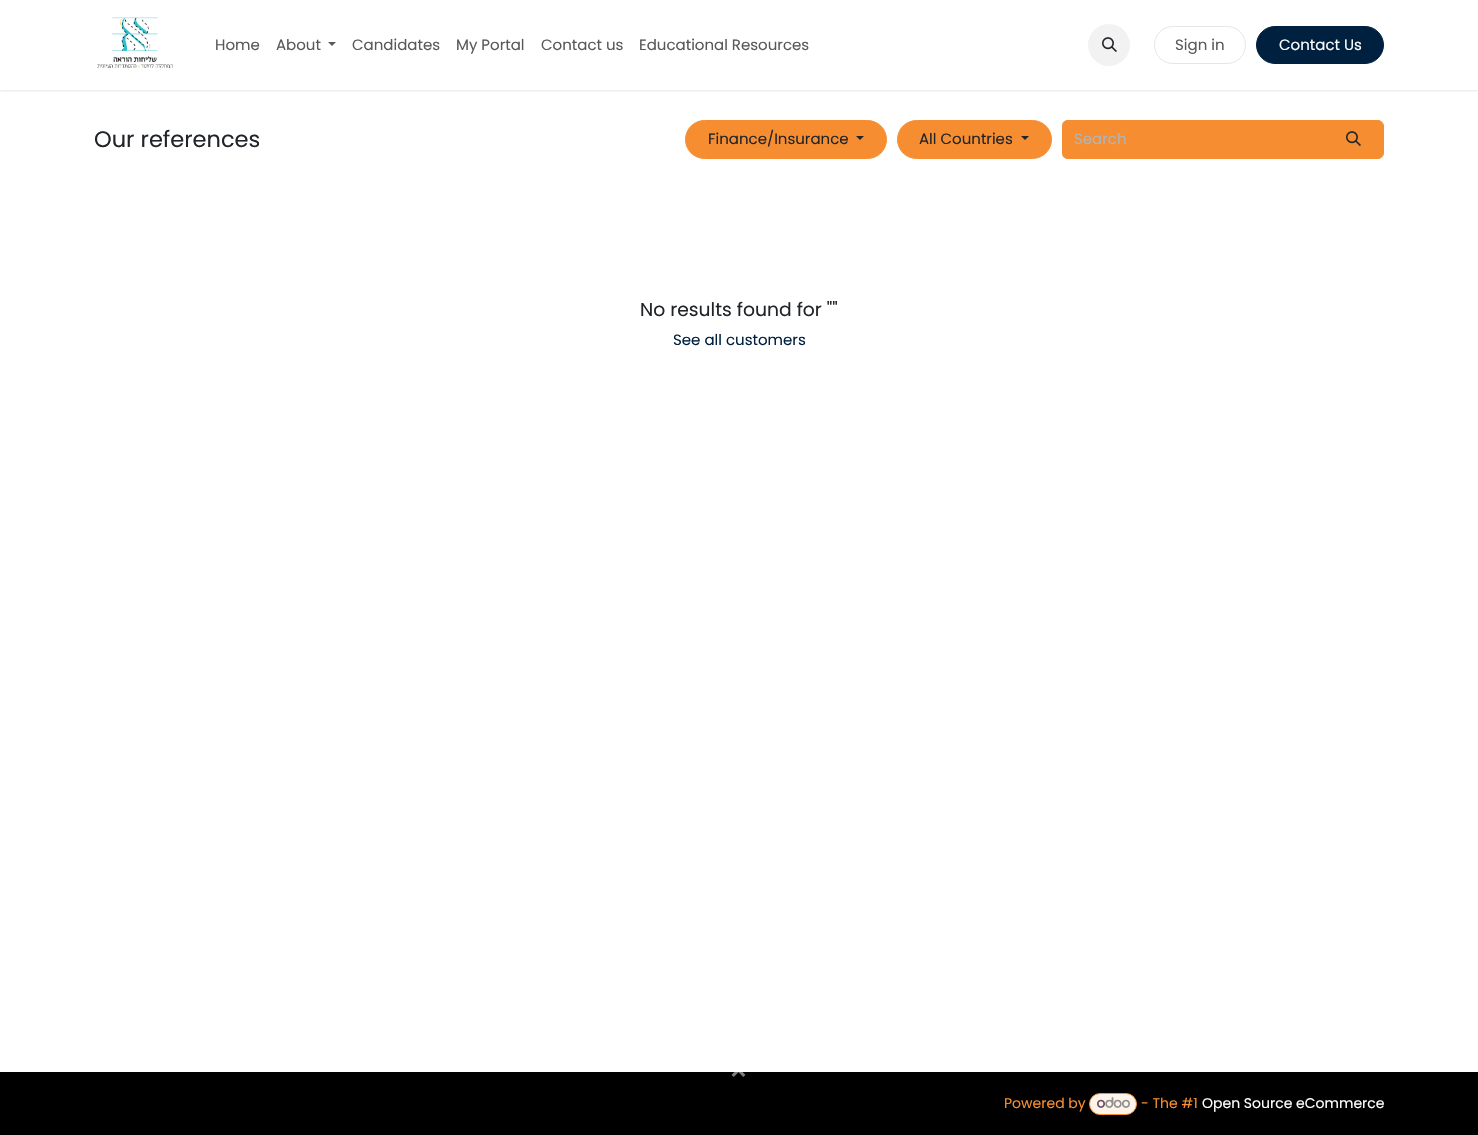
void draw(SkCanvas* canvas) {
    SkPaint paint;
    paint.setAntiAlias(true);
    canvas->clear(0xFFFFFFFF);
    canvas->save();
    canvas->clipRect(SkRect::MakeXYWH(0, 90, 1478, 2));
    paint.setColor(0x1A000000);
    paint.setMaskFilter(SkMaskFilter::MakeBlur(kNormal_SkBlurStyle, 1.5f));
    canvas->drawRect(SkRect::MakeXYWH(0, 1, 1478, 90), paint);
    paint.setMaskFilter(nullptr);
    canvas->restore();
    canvas->drawImageRect(SkImages::DeferredFromEncodedData(SkData::MakeFromFileName("img1.png")), SkRect::MakeXYWH(97, 17, 76, 51), SkSamplingOptions());
    SkFont font1(fontMgr->matchFamilyStyle("Poppins", SkFontStyle::Normal()), 15);
    font1.setSubpixel(true);
    paint.setColor(0xFF595959);
    canvas->drawString("Home", 215, 50, font1, paint);
    canvas->drawString("About", 276, 50, font1, paint);
    canvas->drawPath(SkPathBuilder().moveTo(328, 42).lineTo(336, 42).lineTo(332, 46).close().detach(), paint);
    canvas->drawString("Candidates", 352, 50, font1, paint);
    canvas->drawString("My Portal", 456, 50, font1, paint);
    canvas->drawString("Contact us", 541, 50, font1, paint);
    canvas->drawString("Educational Resources", 639, 50, font1, paint);
    paint.setColor(0xFFF2F2F2);
    canvas->drawCircle(1109, 45, 21, paint);
    canvas->drawImageRect(SkImages::DeferredFromEncodedData(SkData::MakeFromFileName("img2.png")), SkRect::MakeXYWH(1102, 37, 15, 15), SkSamplingOptions());
    paint.setStyle(SkPaint::kStroke_Style);
    paint.setStrokeWidth(1);
    paint.setColor(0xFFE6E6E6);
    canvas->drawRoundRect(SkRect::MakeXYWH(1154.5f, 26.5f, 91, 37), 18.5f, 18.5f, paint);
    paint.setStyle(SkPaint::kFill_Style);
    paint.setColor(0xFF595959);
    canvas->drawString("Sign in", 1175, 50, font1, paint);
    paint.setColor(0xFF00203F);
    canvas->drawRoundRect(SkRect::MakeXYWH(1256.5f, 26.5f, 127, 37), 18.5f, 18.5f, paint);
    paint.setStyle(SkPaint::kStroke_Style);
    canvas->drawRoundRect(SkRect::MakeXYWH(1256.5f, 26.5f, 127, 37), 18.5f, 18.5f, paint);
    paint.setStyle(SkPaint::kFill_Style);
    paint.setColor(0xFFFFFFFF);
    canvas->drawString("Contact Us", 1279, 50, font1, paint);
    paint.setColor(0xFF000000);
    canvas->drawRect(SkRect::MakeXYWH(0, 1072, 1478, 63), paint);
    canvas->drawCircle(739, 1072, 24, paint);
    paint.setColor(0xFFFFFFFF);
    canvas->drawRect(SkRect::MakeXYWH(715, 1048, 48, 24), paint);
    SkFont font2(fontMgr->matchFamilyStyle("Poppins", SkFontStyle::Normal()), 22.5f);
    font2.setSubpixel(true);
    paint.setColor(0xFF212529);
    canvas->drawString("Our references", 94, 147, font2, paint);
    paint.setColor(0xFFF68E31);
    canvas->drawRoundRect(SkRect::MakeXYWH(685.5f, 120.5f, 201, 38), 19, 19, paint);
    paint.setStyle(SkPaint::kStroke_Style);
    canvas->drawRoundRect(SkRect::MakeXYWH(685.5f, 120.5f, 201, 38), 19, 19, paint);
    paint.setStyle(SkPaint::kFill_Style);
    paint.setColor(0xFF212529);
    canvas->drawString("Finance/Insurance", 708, 144, font1, paint);
    canvas->drawPath(SkPathBuilder().moveTo(856, 136).lineTo(864, 136).lineTo(860, 140).close().detach(), paint);
    paint.setColor(0xFFF68E31);
    canvas->drawRoundRect(SkRect::MakeXYWH(897.5f, 120.5f, 154, 38), 19, 19, paint);
    paint.setStyle(SkPaint::kStroke_Style);
    canvas->drawRoundRect(SkRect::MakeXYWH(897.5f, 120.5f, 154, 38), 19, 19, paint);
    paint.setStyle(SkPaint::kFill_Style);
    paint.setColor(0xFF212529);
    canvas->drawString("All Countries", 919, 144, font1, paint);
    canvas->drawPath(SkPathBuilder().moveTo(1021, 136).lineTo(1029, 136).lineTo(1025, 140).close().detach(), paint);
    paint.setColor(0xFFF68E31);
    canvas->drawPath(SkPathBuilder().moveTo(1068, 120).lineTo(1325, 120).lineTo(1325, 159).lineTo(1068, 159).cubicTo(1064.5f, 159, 1062, 156.5f, 1062, 153).lineTo(1062, 126).cubicTo(1062, 122.5f, 1064.5f, 120, 1068, 120).close().detach(), paint);
    paint.setColor(0xFFADB5BD);
    canvas->drawString("Search", 1074, 144, font1, paint);
    paint.setColor(0xFFF68E31);
    canvas->drawPath(SkPathBuilder().moveTo(1324.5f, 120.5f).lineTo(1378, 120.5f).cubicTo(1381, 120.5f, 1383.5f, 123, 1383.5f, 126).lineTo(1383.5f, 153).cubicTo(1383.5f, 156, 1381, 158.5f, 1378, 158.5f).lineTo(1324.5f, 158.5f).close().detach(), paint);
    paint.setStyle(SkPaint::kStroke_Style);
    canvas->drawPath(SkPathBuilder().moveTo(1324.5f, 120.5f).lineTo(1378, 120.5f).cubicTo(1381, 120.5f, 1383.5f, 123, 1383.5f, 126).lineTo(1383.5f, 153).cubicTo(1383.5f, 156, 1381, 158.5f, 1378, 158.5f).lineTo(1324.5f, 158.5f).close().detach(), paint);
    canvas->drawImageRect(SkImages::DeferredFromEncodedData(SkData::MakeFromFileName("img3.png")), SkRect::MakeXYWH(1346, 131, 15, 15), SkSamplingOptions());
    SkFont font3(fontMgr->matchFamilyStyle("Poppins", SkFontStyle::Normal()), 18.75f);
    font3.setSubpixel(true);
    paint.setStyle(SkPaint::kFill_Style);
    paint.setColor(0xFF212529);
    canvas->drawString("No results found for \"\"", 640, 316, font3, paint);
    paint.setColor(0xFF00203F);
    canvas->drawString("See all customers", 673, 345, font1, paint);
    canvas->drawImageRect(SkImages::DeferredFromEncodedData(SkData::MakeFromFileName("img4.png")), SkRect::MakeXYWH(731, 1072, 15, 5), SkSamplingOptions());
    SkFont font4(fontMgr->matchFamilyStyle("Poppins", SkFontStyle::Normal()), 14);
    font4.setSubpixel(true);
    paint.setColor(0xFFF68E31);
    canvas->drawString("Powered by", 1004, 1108, font4, paint);
    paint.setColor(0xFFFEF4EA);
    canvas->drawRoundRect(SkRect::MakeXYWH(1089.5f, 1093.5f, 47, 21), 10.5f, 10.5f, paint);
    paint.setStyle(SkPaint::kStroke_Style);
    paint.setColor(0xFFF68E31);
    canvas->drawRoundRect(SkRect::MakeXYWH(1089.5f, 1093.5f, 47, 21), 10.5f, 10.5f, paint);
    canvas->drawImageRect(SkImages::DeferredFromEncodedData(SkData::MakeFromFileName("img5.png")), SkRect::MakeXYWH(1097, 1097, 33, 11), SkSamplingOptions());
    paint.setStyle(SkPaint::kFill_Style);
    canvas->drawString("- The #1", 1141, 1108, font4, paint);
    paint.setColor(0xFFFFFFFF);
    canvas->drawString("Open Source eCommerce", 1202, 1108, font4, paint);
}
